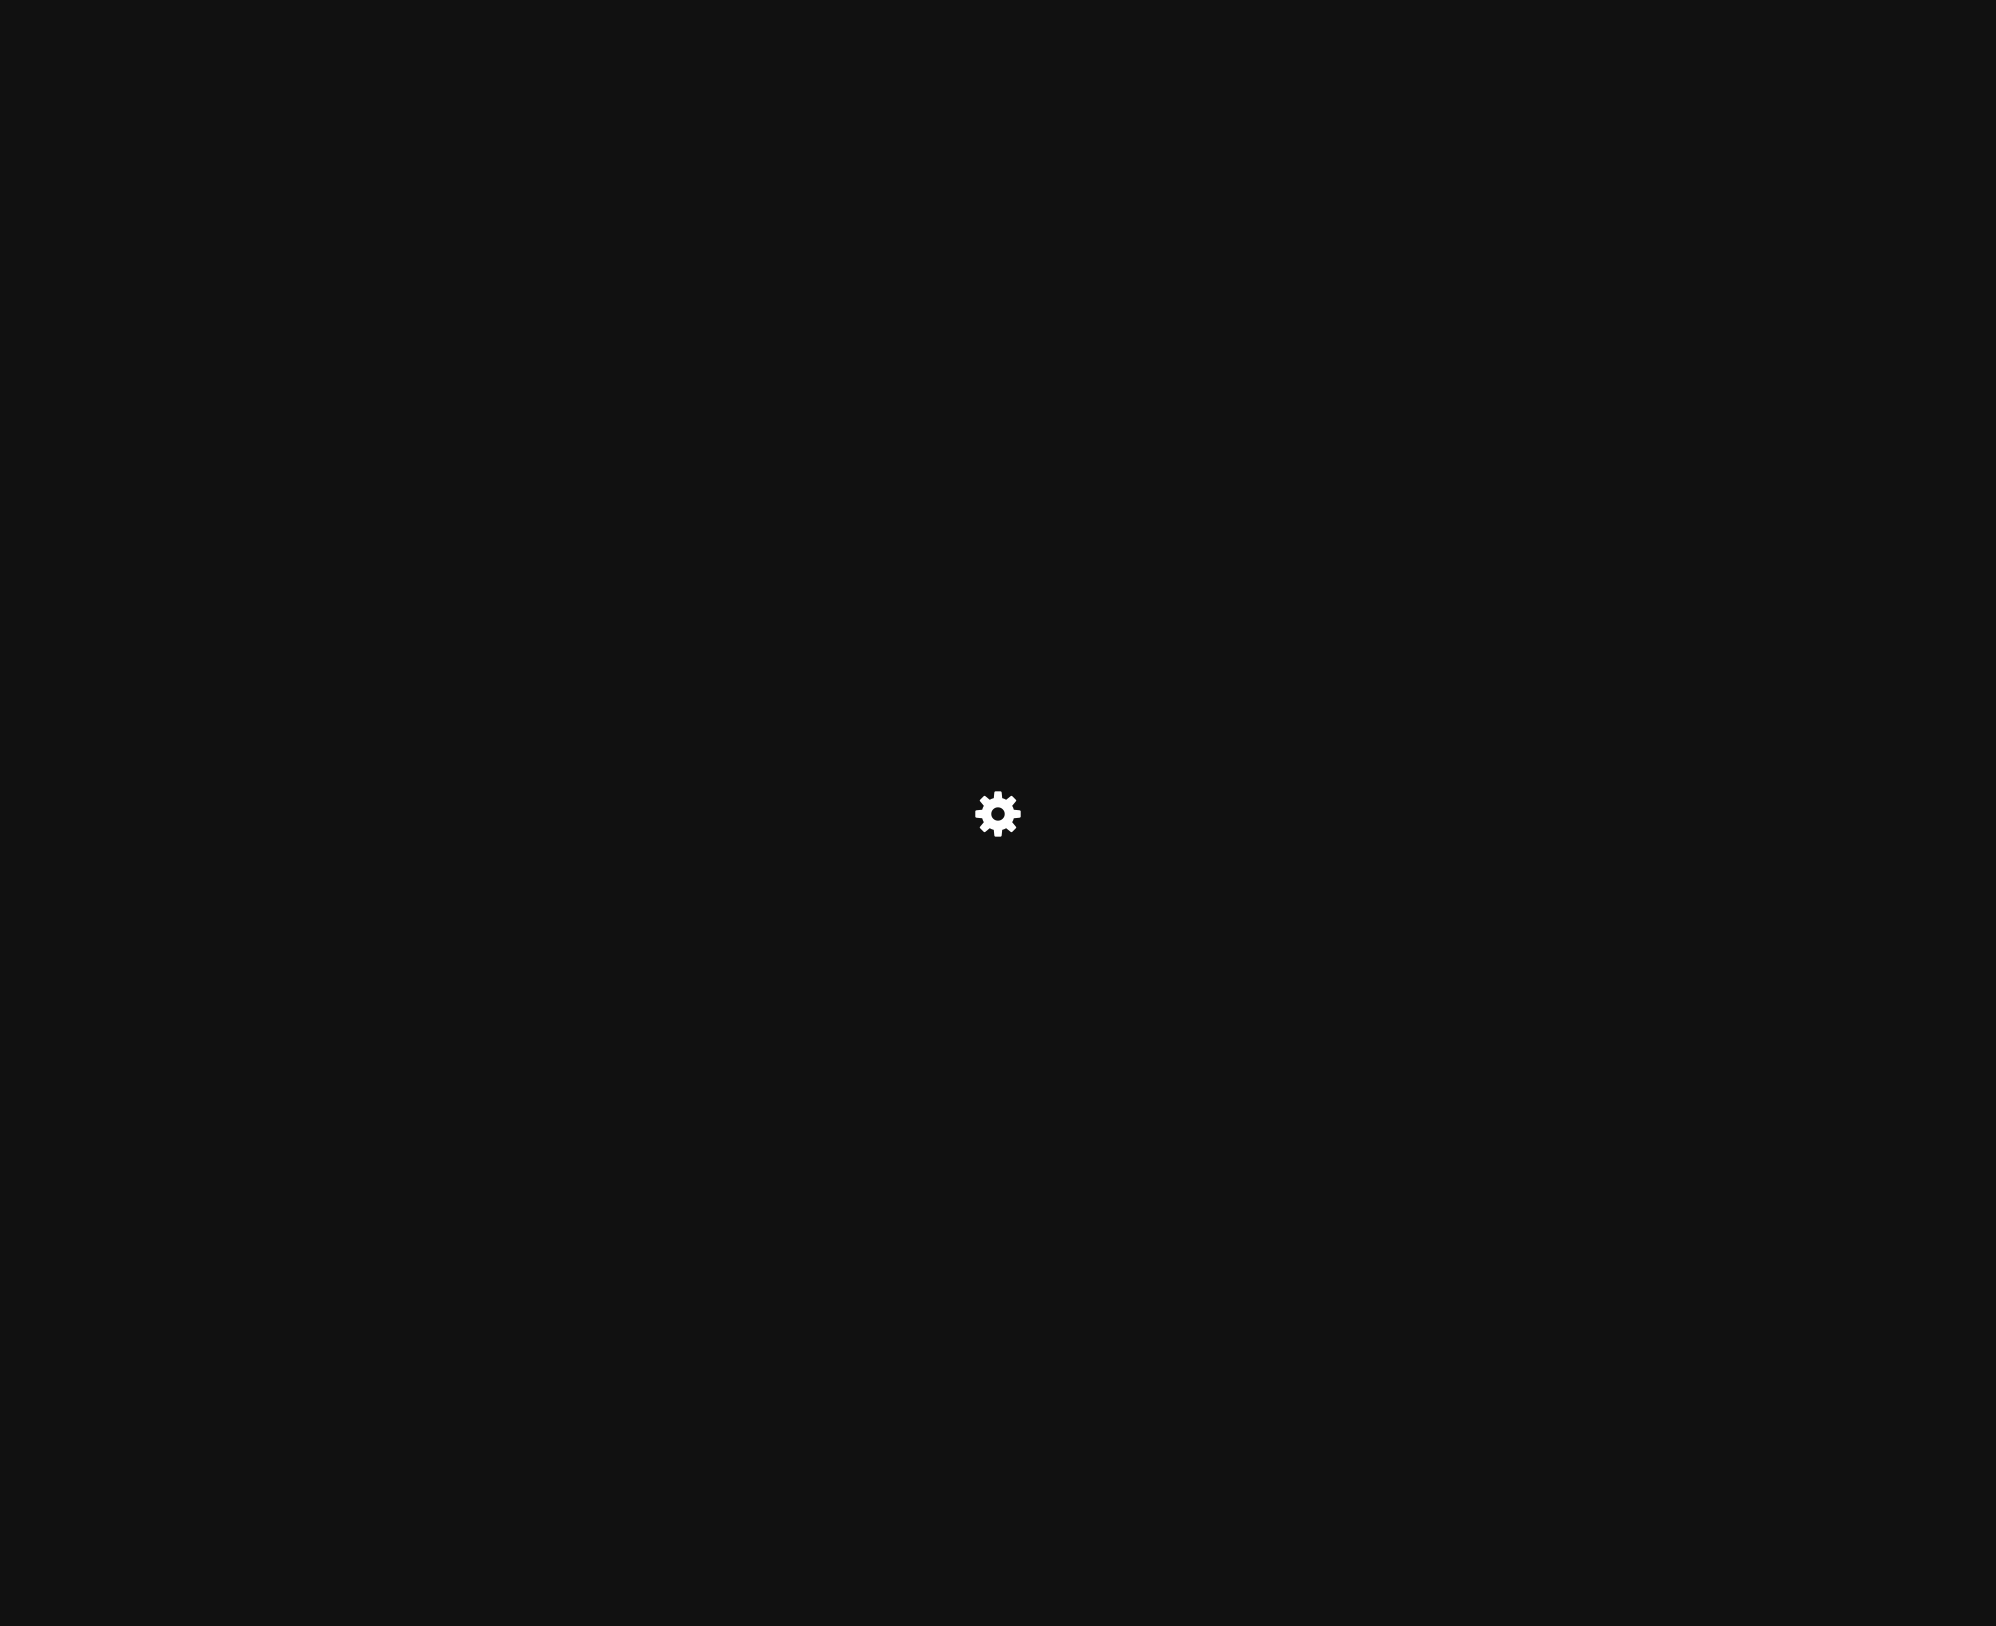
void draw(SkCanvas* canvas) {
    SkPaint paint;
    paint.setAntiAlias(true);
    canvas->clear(0xFF111111);
    canvas->drawImageRect(SkImages::DeferredFromEncodedData(SkData::MakeFromFileName("img1.png")), SkRect::MakeXYWH(975, 791, 46, 46), SkSamplingOptions());
}
